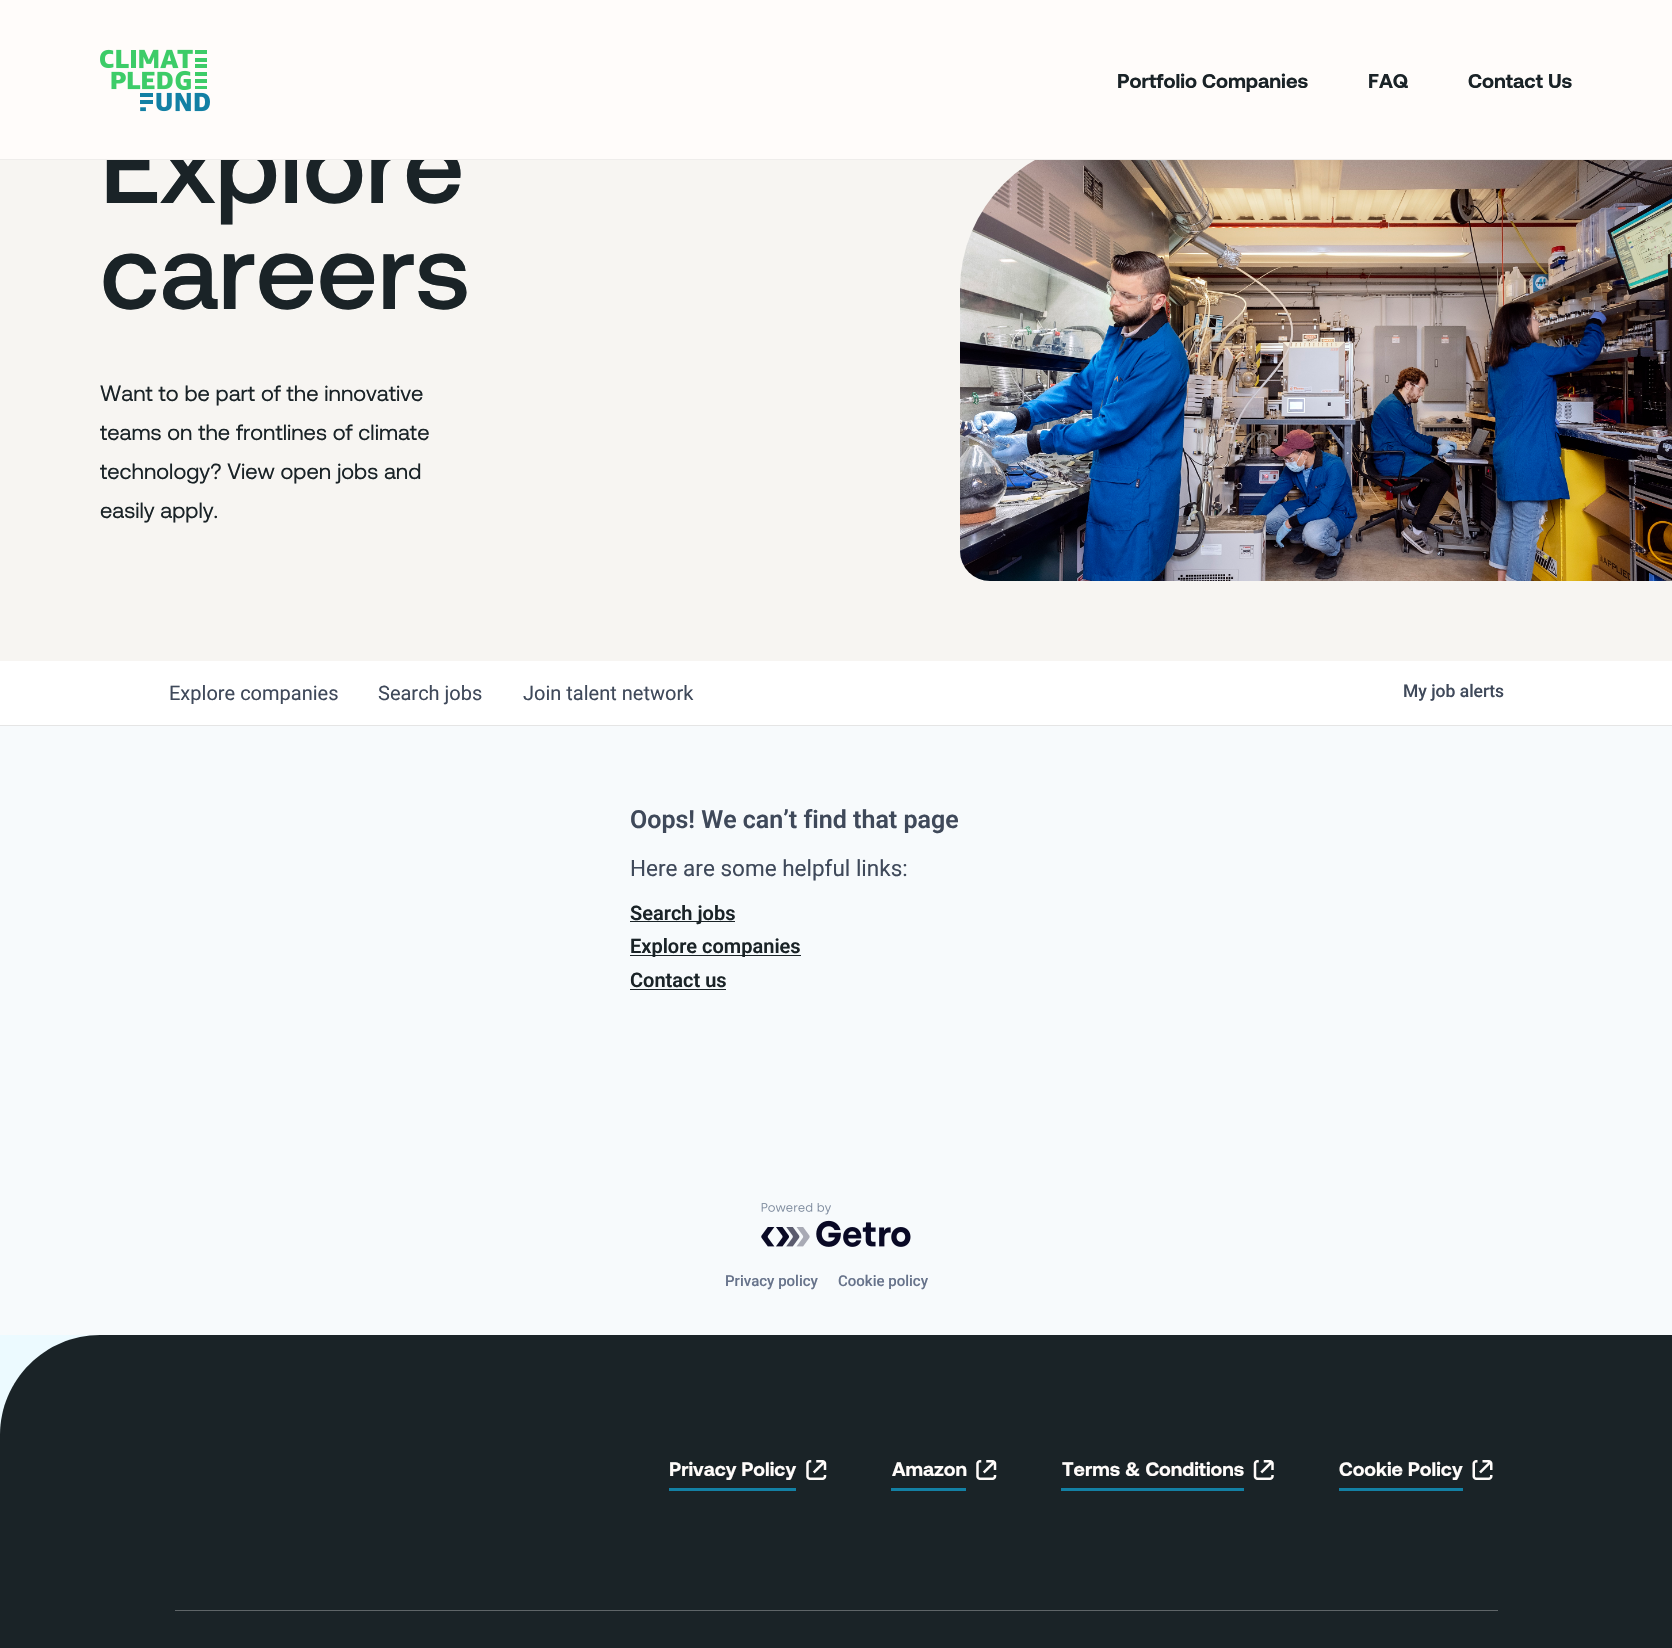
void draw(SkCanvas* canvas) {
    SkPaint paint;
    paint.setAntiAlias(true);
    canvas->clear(0xFFF7FAFC);
    paint.setColor(0xFFF7F5F2);
    canvas->drawRect(SkRect::MakeXYWH(0, 160, 1672, 501), paint);
    SkFont font1(fontMgr->matchFamilyStyle("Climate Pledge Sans", SkFontStyle(500, SkFontStyle::kNormal_Width, SkFontStyle::kUpright_Slant)), 107);
    font1.setSubpixel(true);
    paint.setColor(0xFF1A2327);
    canvas->drawString("Explore", 100, 203, font1, paint);
    paint.setColor(0xFFFFFCFA);
    canvas->drawRect(SkRect::MakeXYWH(0, 0, 1672, 159), paint);
    paint.setColor(0xFFEFEDEB);
    canvas->drawRect(SkRect::MakeXYWH(0, 159, 1672, 1), paint);
    canvas->drawImageRect(SkImages::DeferredFromEncodedData(SkData::MakeFromFileName("img1.png")), SkRect::MakeXYWH(100, 49, 110, 63), SkSamplingOptions());
    SkFont font2(fontMgr->matchFamilyStyle("Climate Pledge Sans", SkFontStyle::Bold()), 20);
    font2.setSubpixel(true);
    paint.setColor(0xFF1A2327);
    canvas->drawString("Portfolio Companies", 1117, 88, font2, paint);
    canvas->drawString("FAQ", 1368, 88, font2, paint);
    canvas->drawString("Contact Us", 1468, 88, font2, paint);
    canvas->drawString("careers", 100, 309, font1, paint);
    SkFont font3(fontMgr->matchFamilyStyle("Climate Pledge Sans", SkFontStyle::Normal()), 22);
    font3.setSubpixel(true);
    canvas->drawString("Want to be part of the innovative", 100, 401, font3, paint);
    canvas->drawString("teams on the frontlines of climate", 100, 440, font3, paint);
    canvas->drawString("technology? View open jobs and", 100, 479, font3, paint);
    canvas->drawString("easily apply.", 100, 518, font3, paint);
    canvas->drawImageRect(SkImages::DeferredFromEncodedData(SkData::MakeFromFileName("img2.png")), SkRect::MakeXYWH(960, 160, 712, 421), SkSamplingOptions());
    paint.setColor(0xFFE5E5E5);
    canvas->drawPath(SkPathBuilder().moveTo(0, 725).lineTo(0, 726).lineTo(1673, 726).lineTo(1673, 663).lineTo(1672, 663).lineTo(1672, 725).close().detach(), paint);
    paint.setColor(0xFFFFFFFF);
    canvas->drawRect(SkRect::MakeXYWH(0, 661, 1672, 64), paint);
    SkFont font4(fontMgr->matchFamilyStyle("Roboto", SkFontStyle::Normal()), 20);
    font4.setSubpixel(true);
    paint.setColor(0xFF3F495A);
    canvas->drawString("Explore companies", 169, 700, font4, paint);
    canvas->drawString("Search jobs", 378, 700, font4, paint);
    canvas->drawString("Join talent network", 523, 700, font4, paint);
    SkFont font5(fontMgr->matchFamilyStyle("Roboto", SkFontStyle(500, SkFontStyle::kNormal_Width, SkFontStyle::kUpright_Slant)), 17.5f);
    font5.setSubpixel(true);
    canvas->drawString("My job alerts", 1403, 697, font5, paint);
    SkFont font6(fontMgr->matchFamilyStyle("Roboto", SkFontStyle(600, SkFontStyle::kNormal_Width, SkFontStyle::kUpright_Slant)), 25);
    font6.setSubpixel(true);
    canvas->drawString("Oops! We can’t find that page", 630, 828, font6, paint);
    SkFont font7(fontMgr->matchFamilyStyle("Roboto", SkFontStyle::Normal()), 22.5f);
    font7.setSubpixel(true);
    canvas->drawString("Here are some helpful links:", 630, 876, font7, paint);
    paint.setColor(0xFF1A2327);
    canvas->drawRect(SkRect::MakeXYWH(630, 921, 105, 1), paint);
    SkFont font8(fontMgr->matchFamilyStyle("Roboto", SkFontStyle(600, SkFontStyle::kNormal_Width, SkFontStyle::kUpright_Slant)), 20);
    font8.setSubpixel(true);
    canvas->drawString("Search jobs", 630, 920, font8, paint);
    canvas->drawRect(SkRect::MakeXYWH(630, 955, 171, 1), paint);
    canvas->drawString("Explore companies", 630, 953, font8, paint);
    canvas->drawString("Contact us", 630, 987, font8, paint);
    canvas->drawRect(SkRect::MakeXYWH(630, 989, 96, 1), paint);
    canvas->drawImageRect(SkImages::DeferredFromEncodedData(SkData::MakeFromFileName("img3.png")), SkRect::MakeXYWH(761, 1203, 150, 44), SkSamplingOptions());
    SkFont font9(fontMgr->matchFamilyStyle("Roboto", SkFontStyle(500, SkFontStyle::kNormal_Width, SkFontStyle::kUpright_Slant)), 15);
    font9.setSubpixel(true);
    paint.setColor(0xFF67738B);
    canvas->drawString("Privacy policy", 725, 1286, font9, paint);
    canvas->drawString("Cookie policy", 838, 1286, font9, paint);
    paint.setColor(0xFFECFAFF);
    canvas->drawRect(SkRect::MakeXYWH(0, 1335, 99, 100), paint);
    paint.setColor(0xFF1A2327);
    canvas->drawPath(SkPathBuilder().moveTo(100, 1335).lineTo(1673, 1335).lineTo(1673, 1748).lineTo(0, 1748).lineTo(0, 1435).cubicTo(0, 1380, 45, 1335, 100, 1335).close().detach(), paint);
    SkFont font10(fontMgr->matchFamilyStyle("Climate Pledge Sans", SkFontStyle::Bold()), 19.5f);
    font10.setSubpixel(true);
    paint.setColor(0xFFFFFCFA);
    canvas->drawString("Privacy Policy", 669, 1476, font10, paint);
    paint.setColor(0xFF1380A4);
    canvas->drawRect(SkRect::MakeXYWH(669, 1488, 127, 3), paint);
    canvas->drawImageRect(SkImages::DeferredFromEncodedData(SkData::MakeFromFileName("img4.png")), SkRect::MakeXYWH(806, 1460, 21, 20), SkSamplingOptions());
    paint.setColor(0xFFFFFCFA);
    canvas->drawString("Amazon", 892, 1476, font10, paint);
    paint.setColor(0xFF1380A4);
    canvas->drawRect(SkRect::MakeXYWH(891, 1488, 75, 3), paint);
    canvas->drawImageRect(SkImages::DeferredFromEncodedData(SkData::MakeFromFileName("img4.png")), SkRect::MakeXYWH(976, 1460, 21, 20), SkSamplingOptions());
    paint.setColor(0xFFFFFCFA);
    canvas->drawString("Terms & Conditions", 1062, 1476, font10, paint);
    paint.setColor(0xFF1380A4);
    canvas->drawRect(SkRect::MakeXYWH(1061, 1488, 183, 3), paint);
    canvas->drawImageRect(SkImages::DeferredFromEncodedData(SkData::MakeFromFileName("img5.png")), SkRect::MakeXYWH(1253, 1460, 21, 20), SkSamplingOptions());
    paint.setColor(0xFFFFFCFA);
    canvas->drawString("Cookie Policy", 1339, 1476, font10, paint);
    paint.setColor(0xFF1380A4);
    canvas->drawRect(SkRect::MakeXYWH(1339, 1488, 124, 3), paint);
    canvas->drawImageRect(SkImages::DeferredFromEncodedData(SkData::MakeFromFileName("img6.png")), SkRect::MakeXYWH(1472, 1460, 21, 20), SkSamplingOptions());
    paint.setColor(0xFF5F6568);
    canvas->drawRect(SkRect::MakeXYWH(175, 1610, 1323, 1), paint);
}
